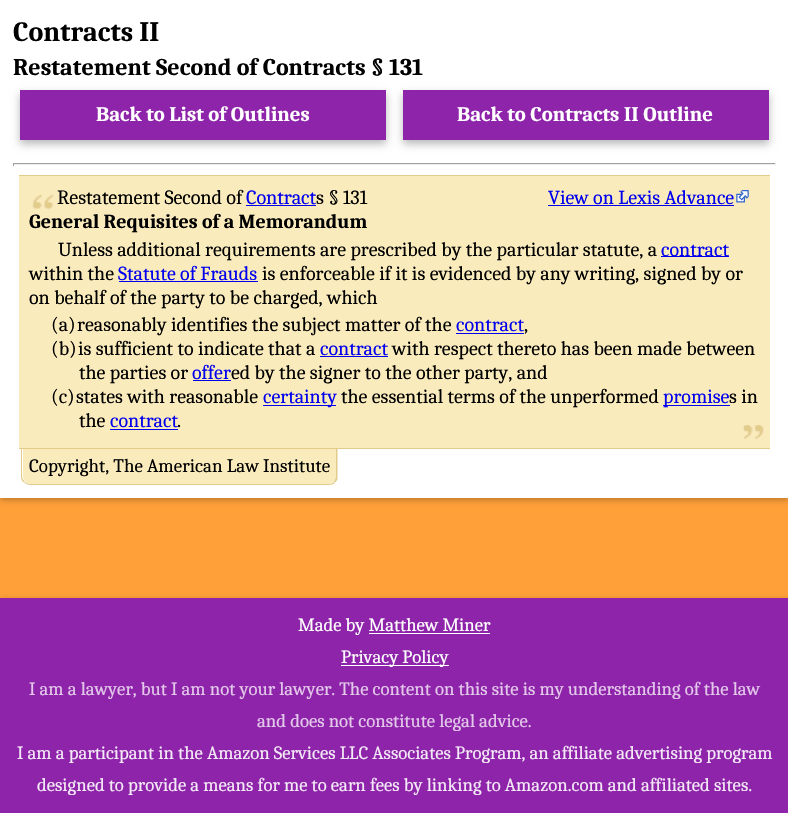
void draw(SkCanvas* canvas) {
    SkPaint paint;
    paint.setAntiAlias(true);
    auto spacedText = [&](const char* s, float x, float y, const SkFont& font, const SkPaint& ink, float letter, float word) {
        std::vector<SkGlyphID> glyphs(font.countText(s, strlen(s), SkTextEncoding::kUTF8));
        std::vector<float> xs(glyphs.size());
        font.textToGlyphs(s, strlen(s), SkTextEncoding::kUTF8, glyphs);
        font.getXPos(glyphs, xs, x);
        float extra = 0;
        for (size_t i = 0; i < glyphs.size(); i++) {
            xs[i] += extra;
            extra += letter + word * (glyphs[i] == font.unicharToGlyph(' '));
        }
        canvas->drawTextBlob(SkTextBlob::MakeFromPosHGlyphs(glyphs, xs, y, font), 0, 0, ink);
    };
    canvas->clear(0xFFFFA039);
    paint.setColor(0x42000000);
    paint.setMaskFilter(SkMaskFilter::MakeBlur(kNormal_SkBlurStyle, 3));
    canvas->drawRect(SkRect::MakeXYWH(0, 3, 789, 497), paint);
    paint.setMaskFilter(nullptr);
    paint.setColor(0xFFFFFFFF);
    canvas->drawRect(SkRect::MakeXYWH(0, 0, 788, 498), paint);
    SkFont font1(fontMgr->matchFamilyStyle("Caladea", SkFontStyle::Bold()), 28);
    font1.setSubpixel(true);
    paint.setColor(0xFF000000);
    canvas->drawString("Contracts II", 13, 41, font1, paint);
    SkFont font2(fontMgr->matchFamilyStyle("Caladea", SkFontStyle::Bold()), 24);
    font2.setSubpixel(true);
    canvas->drawString("Restatement Second of Contracts § 131", 13, 75, font2, paint);
    paint.setColor(0x47000000);
    paint.setMaskFilter(SkMaskFilter::MakeBlur(kNormal_SkBlurStyle, 4));
    canvas->drawRect(SkRect::MakeXYWH(20, 94, 366, 50), paint);
    paint.setMaskFilter(nullptr);
    paint.setColor(0xFF8E24AA);
    canvas->drawRect(SkRect::MakeXYWH(20, 90, 366, 50), paint);
    SkFont font3(fontMgr->matchFamilyStyle("Caladea", SkFontStyle::Bold()), 20.75f);
    font3.setSubpixel(true);
    paint.setColor(0xFFFFFFFF);
    canvas->drawString("Back to List of Outlines", 96, 121, font3, paint);
    paint.setColor(0x47000000);
    paint.setMaskFilter(SkMaskFilter::MakeBlur(kNormal_SkBlurStyle, 4));
    canvas->drawRect(SkRect::MakeXYWH(403, 94, 366, 50), paint);
    paint.setMaskFilter(nullptr);
    paint.setColor(0xFF8E24AA);
    canvas->drawRect(SkRect::MakeXYWH(403, 90, 366, 50), paint);
    paint.setColor(0xFFFFFFFF);
    canvas->drawString("Back to Contracts II Outline", 457, 121, font3, paint);
    paint.setColor(0xFF9F9F9F);
    canvas->drawRect(SkRect::MakeXYWH(13, 163, 763, 1), paint);
    paint.setColor(0xFFEEEEEE);
    canvas->drawRect(SkRect::MakeXYWH(775, 163, 1, 3), paint);
    canvas->drawRect(SkRect::MakeXYWH(13, 164, 763, 1), paint);
    paint.setColor(0xFF9F9F9F);
    canvas->drawRect(SkRect::MakeXYWH(13, 163, 1, 3), paint);
    paint.setColor(0xFFFAEBBC);
    canvas->drawPath(SkPathBuilder().moveTo(23, 449).lineTo(336, 449).lineTo(336, 476).cubicTo(336, 480.5f, 332.5f, 484, 328, 484).lineTo(31, 484).cubicTo(26.5f, 484, 23, 480.5f, 23, 476).close().detach(), paint);
    paint.setColor(0xFFE1CC89);
    canvas->drawPath(SkPathBuilder().moveTo(337.5f, 446).lineTo(337.5f, 479).cubicTo(337, 480.5f, 336, 481.5f, 335, 482.5f).lineTo(334, 481.5f).cubicTo(335, 480, 336, 478, 336, 476).lineTo(336, 449).close().detach(), paint);
    canvas->drawPath(SkPathBuilder().moveTo(30, 485).lineTo(329, 485).cubicTo(331, 485, 334, 484, 335, 483).lineTo(334, 482).cubicTo(333, 483, 331, 484, 329, 484).lineTo(30, 484).cubicTo(28, 484, 26, 483, 25, 482).lineTo(24, 482).cubicTo(25, 484, 28, 485, 30, 485).close().detach(), paint);
    canvas->drawPath(SkPathBuilder().moveTo(22, 449).lineTo(22, 476).cubicTo(22, 478, 23, 480, 24.5f, 481.5f).lineTo(24, 482.5f).cubicTo(22.5f, 481.5f, 21.5f, 480, 21, 478).lineTo(21, 446).lineTo(22.5f, 449).close().detach(), paint);
    paint.setColor(0xFFFAEBBC);
    canvas->drawRect(SkRect::MakeXYWH(19, 176, 751, 272), paint);
    canvas->drawImageRect(SkImages::DeferredFromEncodedData(SkData::MakeFromFileName("img1.png")), SkRect::MakeXYWH(743, 425, 21, 14), SkSamplingOptions());
    paint.setColor(0xFFE1CC89);
    canvas->drawRect(SkRect::MakeXYWH(19, 175, 751, 1), paint);
    canvas->drawRect(SkRect::MakeXYWH(19, 448, 751, 1), paint);
    canvas->drawImageRect(SkImages::DeferredFromEncodedData(SkData::MakeFromFileName("img2.png")), SkRect::MakeXYWH(32, 194, 22, 15), SkSamplingOptions());
    SkFont font4(fontMgr->matchFamilyStyle("Caladea", SkFontStyle::Normal()), 20.25f);
    font4.setSubpixel(true);
    paint.setColor(0xFF000000);
    spacedText("Restatement Second of", 57, 204, font4, paint, -0.1f, 0);
    paint.setColor(0xFF0000EE);
    spacedText("Contract", 246, 204, font4, paint, -0.1f, 0);
    canvas->drawRect(SkRect::MakeXYWH(246, 205, 70, 1), paint);
    paint.setColor(0xFF000000);
    canvas->drawString("s § 131", 316, 204, font4, paint);
    SkFont font5(fontMgr->matchFamilyStyle("Caladea", SkFontStyle::Normal()), 20);
    font5.setSubpixel(true);
    paint.setColor(0xFF0000EE);
    canvas->drawString("View on Lexis Advance", 548, 204, font5, paint);
    canvas->drawRect(SkRect::MakeXYWH(548, 205, 186, 1), paint);
    canvas->drawImageRect(SkImages::DeferredFromEncodedData(SkData::MakeFromFileName("img3.png")), SkRect::MakeXYWH(736, 190, 13, 13), SkSamplingOptions());
    SkFont font6(fontMgr->matchFamilyStyle("Caladea", SkFontStyle::Bold()), 20);
    font6.setSubpixel(true);
    paint.setColor(0xFF000000);
    canvas->drawString("General Requisites of a Memorandum", 29, 228, font6, paint);
    canvas->drawString("Unless additional requirements are prescribed by the particular statute, a", 58, 256, font5, paint);
    paint.setColor(0xFF0000EE);
    canvas->drawRect(SkRect::MakeXYWH(661, 256, 68, 1), paint);
    canvas->drawString("contract", 661, 256, font5, paint);
    paint.setColor(0xFF000000);
    canvas->drawString("within the", 29, 280, font5, paint);
    paint.setColor(0xFF0000EE);
    canvas->drawString("Statute of Frauds", 118, 280, font5, paint);
    canvas->drawRect(SkRect::MakeXYWH(119, 281, 139, 1), paint);
    paint.setColor(0xFF000000);
    canvas->drawString("is enforceable if it is evidenced by any writing, signed by or", 262, 280, font5, paint);
    canvas->drawString("on behalf of the party to be charged, which", 29, 304, font5, paint);
    canvas->drawString("(a)", 51, 331, font5, paint);
    canvas->drawString("reasonably identifies the subject matter of the", 77, 331, font5, paint);
    paint.setColor(0xFF0000EE);
    canvas->drawString("contract", 456, 331, font5, paint);
    canvas->drawRect(SkRect::MakeXYWH(456, 333, 68, 1), paint);
    paint.setColor(0xFF000000);
    canvas->drawString(",", 524, 331, font5, paint);
    canvas->drawString("(b)", 51, 355, font5, paint);
    canvas->drawString("is sufficient to indicate that a", 78, 355, font5, paint);
    paint.setColor(0xFF0000EE);
    canvas->drawString("contract", 320, 355, font5, paint);
    canvas->drawRect(SkRect::MakeXYWH(320, 356, 68, 1), paint);
    paint.setColor(0xFF000000);
    canvas->drawString("with respect thereto has been made between", 392, 355, font5, paint);
    canvas->drawString("the parties or", 79, 379, font5, paint);
    paint.setColor(0xFF0000EE);
    canvas->drawString("offer", 192, 379, font5, paint);
    canvas->drawRect(SkRect::MakeXYWH(193, 380, 38, 1), paint);
    paint.setColor(0xFF000000);
    canvas->drawString("ed by the signer to the other party, and", 231, 379, font5, paint);
    canvas->drawString("(c)", 51, 403, font5, paint);
    canvas->drawString("states with reasonable", 76, 403, font5, paint);
    paint.setColor(0xFF0000EE);
    canvas->drawRect(SkRect::MakeXYWH(263, 405, 73, 1), paint);
    canvas->drawString("certainty", 263, 403, font5, paint);
    paint.setColor(0xFF000000);
    canvas->drawString("the essential terms of the unperformed", 341, 403, font5, paint);
    paint.setColor(0xFF0000EE);
    canvas->drawRect(SkRect::MakeXYWH(663, 405, 67, 1), paint);
    canvas->drawString("promise", 663, 403, font5, paint);
    paint.setColor(0xFF000000);
    canvas->drawString("s in", 729, 403, font5, paint);
    canvas->drawString("the", 79, 427, font5, paint);
    paint.setColor(0xFF0000EE);
    canvas->drawString("contract", 110, 427, font5, paint);
    canvas->drawRect(SkRect::MakeXYWH(110, 429, 68, 1), paint);
    paint.setColor(0xFF000000);
    canvas->drawString(".", 177, 427, font5, paint);
    SkFont font7(fontMgr->matchFamilyStyle("Caladea", SkFontStyle::Normal()), 19);
    font7.setSubpixel(true);
    canvas->drawString("Copyright, The American Law Institute", 29, 472, font7, paint);
    paint.setColor(0x42000000);
    paint.setMaskFilter(SkMaskFilter::MakeBlur(kNormal_SkBlurStyle, 3));
    canvas->drawRect(SkRect::MakeXYWH(0, 600, 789, 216), paint);
    paint.setMaskFilter(nullptr);
    paint.setColor(0xFF8E24AA);
    canvas->drawRect(SkRect::MakeXYWH(0, 598, 788, 215), paint);
    SkFont font8(fontMgr->matchFamilyStyle("Caladea", SkFontStyle::Normal()), 18.75f);
    font8.setSubpixel(true);
    paint.setColor(0xFFFFFFFF);
    canvas->drawString("Made by Matthew Miner", 298, 631, font8, paint);
    canvas->drawRect(SkRect::MakeXYWH(369, 633, 121, 1), paint);
    canvas->drawRect(SkRect::MakeXYWH(341, 665, 108, 1), paint);
    canvas->drawString("Privacy Policy", 341, 663, font8, paint);
    paint.setColor(0xFFE3C8EA);
    canvas->drawString("I am a lawyer, but I am not your lawyer. The content on this site is my understanding of the law", 29, 695, font8, paint);
    canvas->drawString("and does not constitute legal advice.", 257, 727, font8, paint);
    paint.setColor(0xFFF4E9F7);
    canvas->drawString("I am a participant in the Amazon Services LLC Associates Program, an affiliate advertising program", 17, 759, font8, paint);
    canvas->drawString("designed to provide a means for me to earn fees by linking to Amazon.com and affiliated sites.", 37, 791, font8, paint);
}
